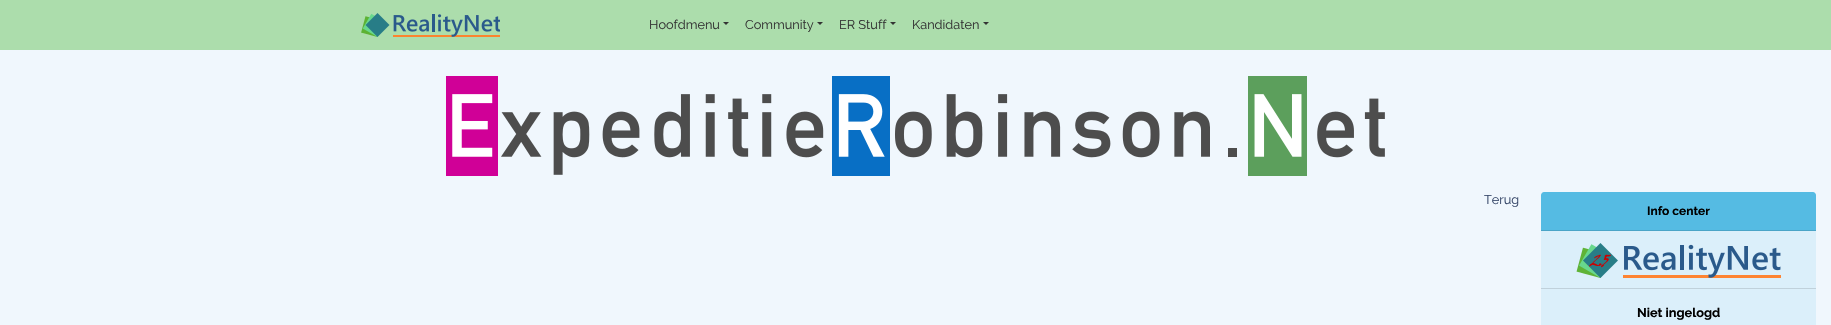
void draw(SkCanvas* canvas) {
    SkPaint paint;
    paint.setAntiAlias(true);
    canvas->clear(0xFFF0F7FD);
    paint.setColor(0xFFACDDAC);
    canvas->drawRect(SkRect::MakeXYWH(0, 0, 1831, 50), paint);
    canvas->drawImageRect(SkImages::DeferredFromEncodedData(SkData::MakeFromFileName("img1.png")), SkRect::MakeXYWH(361, 13, 139, 24), SkSamplingOptions());
    SkFont font1(fontMgr->matchFamilyStyle("Raleway", SkFontStyle::Normal()), 12.75f);
    font1.setSubpixel(true);
    paint.setColor(0xFF333333);
    canvas->drawString("Hoofdmenu", 649, 29, font1, paint);
    canvas->drawPath(SkPathBuilder().moveTo(723, 22).lineTo(729, 22).lineTo(726, 25).close().detach(), paint);
    canvas->drawString("Community", 745, 29, font1, paint);
    canvas->drawPath(SkPathBuilder().moveTo(817, 22).lineTo(823, 22).lineTo(820, 25).close().detach(), paint);
    canvas->drawString("ER Stuff", 839, 29, font1, paint);
    canvas->drawPath(SkPathBuilder().moveTo(890, 22).lineTo(896, 22).lineTo(893, 25).close().detach(), paint);
    canvas->drawString("Kandidaten", 912, 29, font1, paint);
    canvas->drawPath(SkPathBuilder().moveTo(983, 22).lineTo(989, 22).lineTo(986, 25).close().detach(), paint);
    canvas->drawImageRect(SkImages::DeferredFromEncodedData(SkData::MakeFromFileName("img2.png")), SkRect::MakeXYWH(446, 76, 939, 100), SkSamplingOptions());
    paint.setColor(0xFF334466);
    canvas->drawString("Terug", 1484, 204, font1, paint);
    paint.setColor(0xFF55BBE3);
    canvas->drawPath(SkPathBuilder().moveTo(1544, 192).lineTo(1813, 192).cubicTo(1814.5f, 192, 1816, 193.5f, 1816, 195).lineTo(1816, 231).lineTo(1541, 231).lineTo(1541, 195).cubicTo(1541, 193.5f, 1542.5f, 192, 1544, 192).close().detach(), paint);
    paint.setColor(0xFF4AA4C7);
    canvas->drawRect(SkRect::MakeXYWH(1541, 230, 275, 1), paint);
    SkFont font2(fontMgr->matchFamilyStyle("Raleway", SkFontStyle::Bold()), 12);
    font2.setSubpixel(true);
    paint.setColor(0xFF000000);
    canvas->drawString("Info center", 1647, 215, font2, paint);
    paint.setColor(0xFFDBEFFA);
    canvas->drawRect(SkRect::MakeXYWH(1541, 231, 275, 57), paint);
    canvas->drawImageRect(SkImages::DeferredFromEncodedData(SkData::MakeFromFileName("img3.png")), SkRect::MakeXYWH(1576, 243, 205, 35), SkSamplingOptions());
    canvas->drawRect(SkRect::MakeXYWH(1541, 289, 275, 36), paint);
    paint.setColor(0xFFC0D1DB);
    canvas->drawRect(SkRect::MakeXYWH(1541, 288, 275, 1), paint);
    SkFont font3(fontMgr->matchFamilyStyle("Raleway", SkFontStyle::Bold()), 12.75f);
    font3.setSubpixel(true);
    paint.setColor(0xFF000000);
    canvas->drawString("Niet ingelogd", 1637, 317, font3, paint);
}
